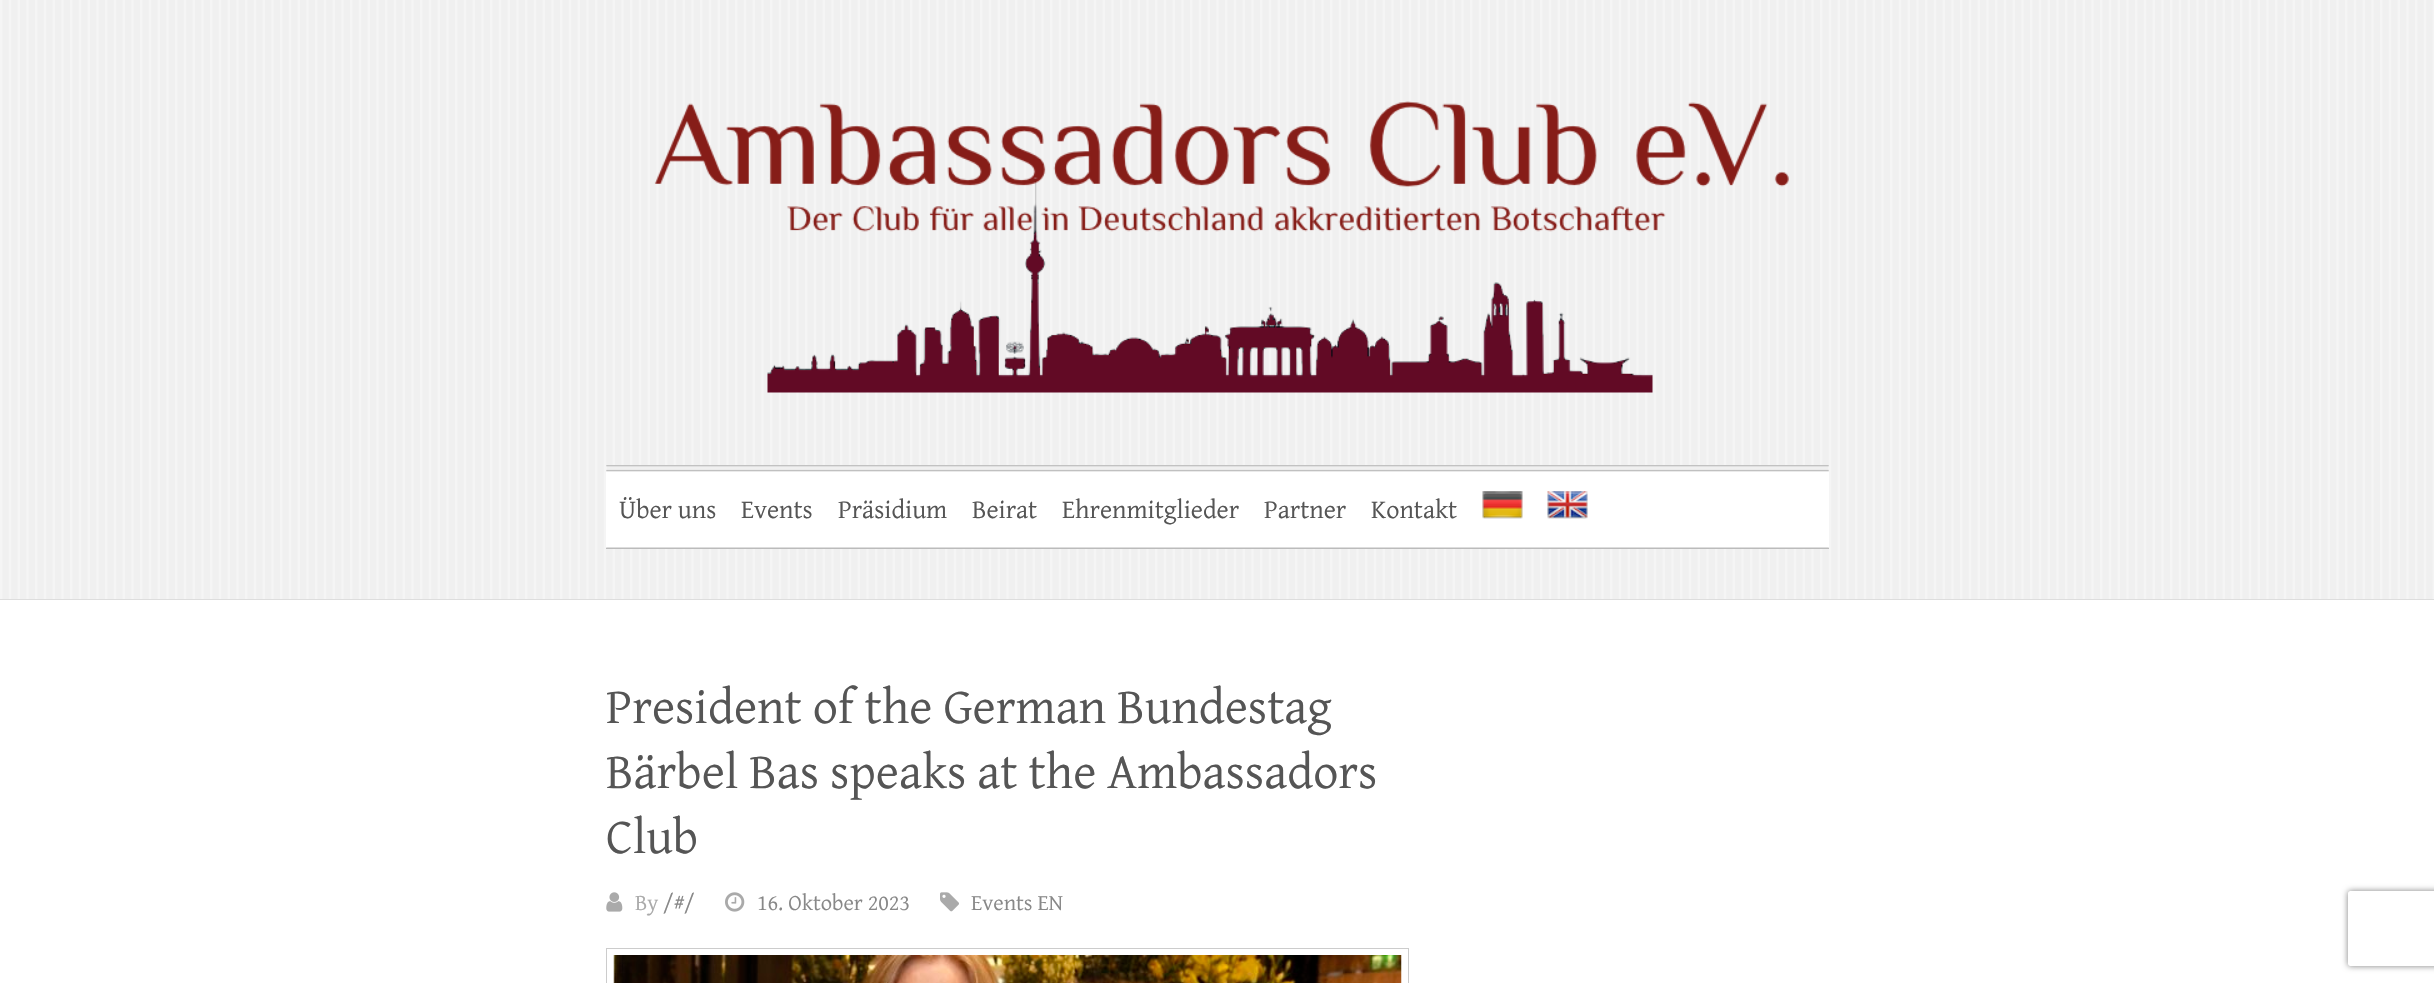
void draw(SkCanvas* canvas) {
    SkPaint paint;
    paint.setAntiAlias(true);
    canvas->clear(0xFFF0F0F0);
    canvas->drawImageRect(SkImages::DeferredFromEncodedData(SkData::MakeFromFileName("img1.png")), SkRect::MakeXYWH(0, 0, 2434, 599), SkSamplingOptions());
    paint.setColor(0xFFDDDDDD);
    canvas->drawRect(SkRect::MakeXYWH(0, 599, 2434, 1), paint);
    canvas->drawImageRect(SkImages::DeferredFromEncodedData(SkData::MakeFromFileName("img2.png")), SkRect::MakeXYWH(654, 101, 1135, 292), SkSamplingOptions());
    paint.setColor(0xFFFFFFFF);
    canvas->drawRect(SkRect::MakeXYWH(606, 465, 1223, 83), paint);
    canvas->drawImageRect(SkImages::DeferredFromEncodedData(SkData::MakeFromFileName("img3.png")), SkRect::MakeXYWH(606, 465, 1223, 83), SkSamplingOptions());
    paint.setColor(0xFFBBBBBB);
    canvas->drawRect(SkRect::MakeXYWH(606, 548, 1223, 1), paint);
    SkFont font1(fontMgr->matchFamilyStyle("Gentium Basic", SkFontStyle::Normal()), 26.25f);
    font1.setSubpixel(true);
    paint.setColor(0xFF555555);
    canvas->drawString("Über uns", 619, 518, font1, paint);
    canvas->drawString("Events", 741, 518, font1, paint);
    canvas->drawString("Präsidium", 838, 518, font1, paint);
    canvas->drawString("Beirat", 972, 518, font1, paint);
    canvas->drawString("Ehrenmitglieder", 1062, 518, font1, paint);
    canvas->drawString("Partner", 1264, 518, font1, paint);
    canvas->drawString("Kontakt", 1371, 518, font1, paint);
    canvas->drawImageRect(SkImages::DeferredFromEncodedData(SkData::MakeFromFileName("img4.png")), SkRect::MakeXYWH(1482, 491, 41, 28), SkSamplingOptions());
    canvas->drawImageRect(SkImages::DeferredFromEncodedData(SkData::MakeFromFileName("img5.png")), SkRect::MakeXYWH(1547, 491, 41, 28), SkSamplingOptions());
    paint.setColor(0xFFFFFFFF);
    canvas->drawRect(SkRect::MakeXYWH(0, 600, 2434, 383), paint);
    SkFont font2(fontMgr->matchFamilyStyle("Gentium Basic", SkFontStyle::Normal()), 50);
    font2.setSubpixel(true);
    paint.setColor(0xFF555555);
    canvas->drawString("President of the German Bundestag", 606, 723, font2, paint);
    canvas->drawString("Bärbel Bas speaks at the Ambassadors", 606, 788, font2, paint);
    canvas->drawString("Club", 606, 853, font2, paint);
    canvas->drawImageRect(SkImages::DeferredFromEncodedData(SkData::MakeFromFileName("img6.png")), SkRect::MakeXYWH(606, 892, 17, 20), SkSamplingOptions());
    SkFont font3(fontMgr->matchFamilyStyle("Gentium Basic", SkFontStyle::Normal()), 22.5f);
    font3.setSubpixel(true);
    paint.setColor(0xFFAAAAAA);
    canvas->drawString("By", 635, 910, font3, paint);
    paint.setColor(0xFF888888);
    canvas->drawString("/#/", 663, 910, font3, paint);
    canvas->drawImageRect(SkImages::DeferredFromEncodedData(SkData::MakeFromFileName("img7.png")), SkRect::MakeXYWH(725, 892, 20, 20), SkSamplingOptions());
    canvas->drawString("16. Oktober 2023", 757, 910, font3, paint);
    canvas->drawImageRect(SkImages::DeferredFromEncodedData(SkData::MakeFromFileName("img8.png")), SkRect::MakeXYWH(940, 892, 19, 20), SkSamplingOptions());
    canvas->drawString("Events EN", 971, 910, font3, paint);
    paint.setStyle(SkPaint::kStroke_Style);
    paint.setStrokeWidth(1);
    paint.setColor(0xFFCCCCCC);
    canvas->drawRect(SkRect::MakeXYWH(606.5f, 948.5f, 802, 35), paint);
    canvas->drawImageRect(SkImages::DeferredFromEncodedData(SkData::MakeFromFileName("img9.png")), SkRect::MakeXYWH(613, 955, 789, 28), SkSamplingOptions());
    canvas->save();
    canvas->clipPath(SkPathBuilder(SkPathFillType::kEvenOdd).moveTo(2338, 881).lineTo(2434, 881).lineTo(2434, 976).lineTo(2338, 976).close().moveTo(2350.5f, 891).lineTo(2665.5f, 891).cubicTo(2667, 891, 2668, 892, 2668, 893.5f).lineTo(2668, 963.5f).cubicTo(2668, 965, 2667, 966, 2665.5f, 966).lineTo(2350.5f, 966).cubicTo(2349, 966, 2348, 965, 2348, 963.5f).lineTo(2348, 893.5f).cubicTo(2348, 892, 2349, 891, 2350.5f, 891).close().detach(), true);
    paint.setStyle(SkPaint::kFill_Style);
    paint.setColor(0xFF808080);
    paint.setMaskFilter(SkMaskFilter::MakeBlur(kNormal_SkBlurStyle, 3));
    canvas->drawRoundRect(SkRect::MakeXYWH(2348, 891, 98, 75), 2.5f, 2.5f, paint);
    paint.setMaskFilter(nullptr);
    canvas->restore();
}
